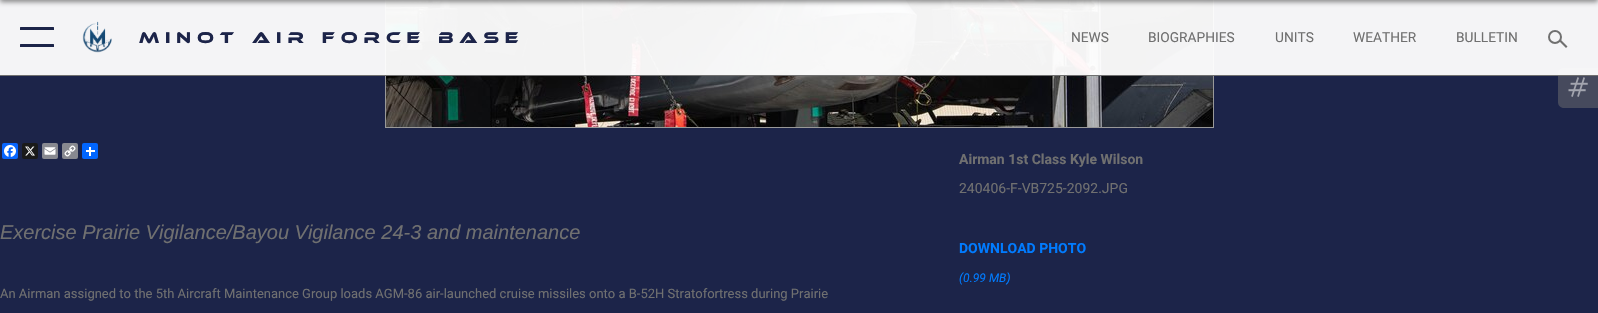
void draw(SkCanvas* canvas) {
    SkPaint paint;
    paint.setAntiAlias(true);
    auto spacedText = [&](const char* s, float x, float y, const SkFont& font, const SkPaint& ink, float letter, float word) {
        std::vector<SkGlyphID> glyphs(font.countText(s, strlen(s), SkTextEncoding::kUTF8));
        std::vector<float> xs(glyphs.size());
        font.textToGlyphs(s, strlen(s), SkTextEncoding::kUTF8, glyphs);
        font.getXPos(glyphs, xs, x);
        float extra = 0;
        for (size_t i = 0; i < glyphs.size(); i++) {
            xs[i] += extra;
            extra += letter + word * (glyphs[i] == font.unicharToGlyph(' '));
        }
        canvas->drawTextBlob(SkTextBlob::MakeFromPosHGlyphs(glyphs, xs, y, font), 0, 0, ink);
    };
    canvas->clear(0xFF1C2449);
    paint.setColor(0xFF464A5D);
    canvas->drawPath(SkPathBuilder().moveTo(1564, 68).lineTo(1598, 68).lineTo(1598, 108).lineTo(1564, 108).cubicTo(1560.5f, 108, 1558, 105.5f, 1558, 102).lineTo(1558, 74).cubicTo(1558, 70.5f, 1560.5f, 68, 1564, 68).close().detach(), paint);
    paint.setStyle(SkPaint::kStroke_Style);
    paint.setStrokeWidth(1);
    paint.setColor(0xFF999999);
    canvas->drawRect(SkRect::MakeXYWH(385.5f, -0.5f, 828, 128), paint);
    canvas->drawImageRect(SkImages::DeferredFromEncodedData(SkData::MakeFromFileName("img3.png")), SkRect::MakeXYWH(386, 0, 827, 127), SkSamplingOptions());
    paint.setStyle(SkPaint::kFill_Style);
    paint.setColor(0xF2FFFFFF);
    canvas->drawRect(SkRect::MakeXYWH(0, 0, 1598, 75), paint);
    paint.setColor(0x73000000);
    paint.setMaskFilter(SkMaskFilter::MakeBlur(kNormal_SkBlurStyle, 2.5f));
    canvas->drawRect(SkRect::MakeXYWH(0, -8, 1598, 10), paint);
    paint.setMaskFilter(nullptr);
    paint.setColor(0xFF707070);
    canvas->drawRect(SkRect::MakeXYWH(0, 75, 1598, 1), paint);
    paint.setColor(0xFF1C2449);
    canvas->drawRoundRect(SkRect::MakeXYWH(20, 27, 34, 3), 0.5f, 0.5f, paint);
    canvas->drawRoundRect(SkRect::MakeXYWH(20, 44, 34, 3), 0.5f, 0.5f, paint);
    canvas->drawImageRect(SkImages::DeferredFromEncodedData(SkData::MakeFromFileName("img1.png")), SkRect::MakeXYWH(82, 21, 30, 32), SkSamplingOptions());
    SkFont font1(fontMgr->matchFamilyStyle("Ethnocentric", SkFontStyle::Normal()), 16);
    font1.setSubpixel(true);
    spacedText("Minot Air Force Base", 139, 43, font1, paint, 5.9f, 0);
    SkFont font2(fontMgr->matchFamilyStyle("Roboto", SkFontStyle::Normal()), 13.75f);
    font2.setSubpixel(true);
    paint.setColor(0xFF707070);
    canvas->drawString("NEWS", 1071, 42, font2, paint);
    canvas->drawString("BIOGRAPHIES", 1148, 42, font2, paint);
    canvas->drawString("UNITS", 1275, 42, font2, paint);
    canvas->drawString("WEATHER", 1353, 42, font2, paint);
    canvas->drawString("BULLETIN", 1456, 42, font2, paint);
    paint.setStyle(SkPaint::kStroke_Style);
    paint.setStrokeWidth(2);
    canvas->drawCircle(1555, 37, 6, paint);
    paint.setStyle(SkPaint::kFill_Style);
    canvas->drawPath(SkPathBuilder().moveTo(1560.5f, 39.5f).lineTo(1567.5f, 46.5f).lineTo(1566, 48).lineTo(1559, 41).close().detach(), paint);
    canvas->drawImageRect(SkImages::DeferredFromEncodedData(SkData::MakeFromFileName("img2.png")), SkRect::MakeXYWH(1568, 77, 20, 20), SkSamplingOptions());
    paint.setColor(0xFF0866FF);
    canvas->drawRoundRect(SkRect::MakeXYWH(2, 143, 16, 16), 2, 2, paint);
    canvas->drawImageRect(SkImages::DeferredFromEncodedData(SkData::MakeFromFileName("img4.png")), SkRect::MakeXYWH(4, 145, 12, 12), SkSamplingOptions());
    paint.setColor(0xFF1A1A1A);
    canvas->drawRoundRect(SkRect::MakeXYWH(22, 143, 16, 16), 2, 2, paint);
    canvas->drawImageRect(SkImages::DeferredFromEncodedData(SkData::MakeFromFileName("img5.png")), SkRect::MakeXYWH(25, 146, 10, 10), SkSamplingOptions());
    paint.setColor(0xFF888990);
    canvas->drawRoundRect(SkRect::MakeXYWH(42, 143, 16, 16), 2, 2, paint);
    canvas->drawImageRect(SkImages::DeferredFromEncodedData(SkData::MakeFromFileName("img6.png")), SkRect::MakeXYWH(44, 147, 12, 8), SkSamplingOptions());
    canvas->drawRoundRect(SkRect::MakeXYWH(62, 143, 16, 16), 2, 2, paint);
    canvas->drawImageRect(SkImages::DeferredFromEncodedData(SkData::MakeFromFileName("img7.png")), SkRect::MakeXYWH(64, 145, 12, 12), SkSamplingOptions());
    paint.setColor(0xFF0166FF);
    canvas->drawRoundRect(SkRect::MakeXYWH(82, 143, 16, 16), 2, 2, paint);
    paint.setColor(0xFFFFFFFF);
    canvas->drawRect(SkRect::MakeXYWH(89, 147, 2, 9), paint);
    canvas->drawRect(SkRect::MakeXYWH(86, 150, 9, 2), paint);
    SkFont font3(fontMgr->matchFamilyStyle("Liberation Sans", SkFontStyle::Italic()), 20);
    font3.setSubpixel(true);
    paint.setColor(0xFF707070);
    canvas->drawString("Exercise Prairie Vigilance/Bayou Vigilance 24-3 and maintenance", 0, 239, font3, paint);
    SkFont font4(fontMgr->matchFamilyStyle("Roboto", SkFontStyle::Normal()), 13);
    font4.setSubpixel(true);
    canvas->drawString("An Airman assigned to the 5th Aircraft Maintenance Group loads AGM-86 air-launched cruise missiles onto a B-52H Stratofortress during Prairie", 0, 298, font4, paint);
    SkFont font5(fontMgr->matchFamilyStyle("Roboto", SkFontStyle::Bold()), 14);
    font5.setSubpixel(true);
    canvas->drawString("Airman 1st Class Kyle Wilson", 959, 164, font5, paint);
    SkFont font6(fontMgr->matchFamilyStyle("Roboto", SkFontStyle::Normal()), 14);
    font6.setSubpixel(true);
    canvas->drawString("240406-F-VB725-2092.JPG", 959, 193, font6, paint);
    paint.setColor(0xFF007BFF);
    canvas->drawString("DOWNLOAD PHOTO", 959, 253, font5, paint);
    SkFont font7(fontMgr->matchFamilyStyle("Roboto", SkFontStyle::Italic()), 12);
    font7.setSubpixel(true);
    canvas->drawString("(0.99 MB)", 959, 282, font7, paint);
}
